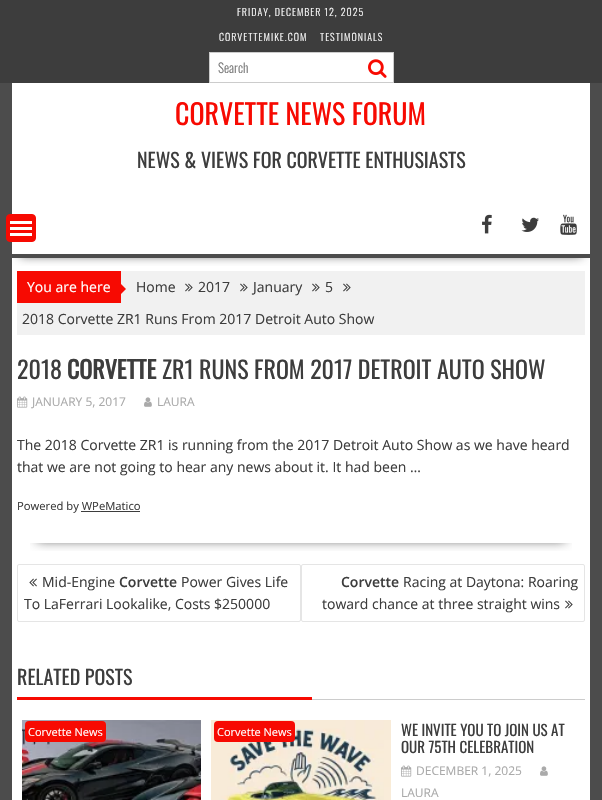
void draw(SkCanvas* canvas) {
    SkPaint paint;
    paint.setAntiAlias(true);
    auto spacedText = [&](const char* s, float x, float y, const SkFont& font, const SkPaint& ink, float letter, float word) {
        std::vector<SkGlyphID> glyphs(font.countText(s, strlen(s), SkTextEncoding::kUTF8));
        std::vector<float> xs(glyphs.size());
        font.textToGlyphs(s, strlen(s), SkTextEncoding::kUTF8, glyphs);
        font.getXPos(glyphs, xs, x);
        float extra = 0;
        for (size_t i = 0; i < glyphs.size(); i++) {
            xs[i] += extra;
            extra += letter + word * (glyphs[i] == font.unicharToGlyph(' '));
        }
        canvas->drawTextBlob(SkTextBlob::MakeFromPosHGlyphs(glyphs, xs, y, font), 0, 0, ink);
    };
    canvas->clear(0xFF4C4C4C);
    paint.setColor(0xFF3D3D3D);
    canvas->drawRect(SkRect::MakeXYWH(0, 0, 602, 83), paint);
    SkFont font1(fontMgr->matchFamilyStyle("Oswald", SkFontStyle(300, SkFontStyle::kNormal_Width, SkFontStyle::kUpright_Slant)), 10);
    font1.setSubpixel(true);
    paint.setColor(0xFFFFFFFF);
    spacedText("FRIDAY, DECEMBER 12, 2025", 237, 16, font1, paint, 1, 0);
    spacedText("CORVETTEMIKE.COM", 219, 41, font1, paint, 1, 0);
    spacedText("TESTIMONIALS", 320, 41, font1, paint, 1, 0);
    canvas->drawRect(SkRect::MakeXYWH(209.5f, 52.5f, 184, 30), paint);
    paint.setStyle(SkPaint::kStroke_Style);
    paint.setStrokeWidth(1);
    paint.setColor(0xFFCCCCCC);
    canvas->drawRect(SkRect::MakeXYWH(209.5f, 52.5f, 184, 30), paint);
    SkFont font2(fontMgr->matchFamilyStyle("Oswald", SkFontStyle(300, SkFontStyle::kNormal_Width, SkFontStyle::kUpright_Slant)), 13);
    font2.setSubpixel(true);
    paint.setStyle(SkPaint::kFill_Style);
    paint.setColor(0xFF757575);
    canvas->drawString("Search", 218, 73, font2, paint);
    canvas->drawImageRect(SkImages::DeferredFromEncodedData(SkData::MakeFromFileName("img1.png")), SkRect::MakeXYWH(368, 59, 19, 19), SkSamplingOptions());
    paint.setColor(0xFFFFFFFF);
    canvas->drawRect(SkRect::MakeXYWH(12, 83, 578, 123), paint);
    SkFont font3(fontMgr->matchFamilyStyle("Oswald", SkFontStyle::Normal()), 28);
    font3.setSubpixel(true);
    paint.setColor(0xFFF70A02);
    canvas->drawString("CORVETTE NEWS FORUM", 175, 125, font3, paint);
    SkFont font4(fontMgr->matchFamilyStyle("Oswald", SkFontStyle::Normal()), 20);
    font4.setSubpixel(true);
    paint.setColor(0xFF3D3D3D);
    canvas->drawString("NEWS & VIEWS FOR CORVETTE ENTHUSIASTS", 137, 168, font4, paint);
    paint.setColor(0xFFFFFFFF);
    canvas->drawRect(SkRect::MakeXYWH(12, 258, 578, 542), paint);
    paint.setColor(0xFFF1F1F1);
    canvas->drawRect(SkRect::MakeXYWH(17, 271, 568, 64), paint);
    canvas->save();
    canvas->clipRect(SkRect::MakeXYWH(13, 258, 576, 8));
    paint.setColor(0xBF000000);
    paint.setMaskFilter(SkMaskFilter::MakeBlur(kNormal_SkBlurStyle, 5.5f));
    canvas->drawRect(SkRect::MakeXYWH(20, 243, 562, 12), paint);
    paint.setMaskFilter(nullptr);
    canvas->restore();
    paint.setColor(0xFFFFFFFF);
    canvas->drawRect(SkRect::MakeXYWH(12, 206, 578, 48), paint);
    canvas->drawImageRect(SkImages::DeferredFromEncodedData(SkData::MakeFromFileName("img2.png")), SkRect::MakeXYWH(482, 214, 10, 20), SkSamplingOptions());
    canvas->drawImageRect(SkImages::DeferredFromEncodedData(SkData::MakeFromFileName("img3.png")), SkRect::MakeXYWH(521, 217, 18, 15), SkSamplingOptions());
    canvas->drawImageRect(SkImages::DeferredFromEncodedData(SkData::MakeFromFileName("img4.png")), SkRect::MakeXYWH(560, 214, 17, 21), SkSamplingOptions());
    paint.setColor(0xFFF70A02);
    canvas->drawRoundRect(SkRect::MakeXYWH(6.5f, 214.5f, 29, 27), 3.5f, 3.5f, paint);
    paint.setStyle(SkPaint::kStroke_Style);
    canvas->drawRoundRect(SkRect::MakeXYWH(6.5f, 214.5f, 29, 27), 3.5f, 3.5f, paint);
    paint.setStyle(SkPaint::kFill_Style);
    paint.setColor(0xFFFFFFFF);
    canvas->drawRect(SkRect::MakeXYWH(10, 233, 22, 3), paint);
    canvas->drawRect(SkRect::MakeXYWH(10, 227, 22, 3), paint);
    canvas->drawRect(SkRect::MakeXYWH(10, 221, 22, 3), paint);
    SkFont font5(fontMgr->matchFamilyStyle("Open Sans", SkFontStyle::Normal()), 14);
    font5.setSubpixel(true);
    paint.setColor(0xFF3D3D3D);
    canvas->drawString("Home", 136, 292, font5, paint);
    canvas->drawImageRect(SkImages::DeferredFromEncodedData(SkData::MakeFromFileName("img5.png")), SkRect::MakeXYWH(185, 283, 8, 9), SkSamplingOptions());
    canvas->drawString("2017", 198, 292, font5, paint);
    canvas->drawImageRect(SkImages::DeferredFromEncodedData(SkData::MakeFromFileName("img5.png")), SkRect::MakeXYWH(240, 283, 8, 9), SkSamplingOptions());
    canvas->drawString("January", 253, 292, font5, paint);
    canvas->drawImageRect(SkImages::DeferredFromEncodedData(SkData::MakeFromFileName("img5.png")), SkRect::MakeXYWH(312, 283, 8, 9), SkSamplingOptions());
    canvas->drawString("5", 325, 292, font5, paint);
    canvas->drawImageRect(SkImages::DeferredFromEncodedData(SkData::MakeFromFileName("img5.png")), SkRect::MakeXYWH(343, 283, 8, 9), SkSamplingOptions());
    canvas->drawString("2018 Corvette ZR1 Runs From 2017 Detroit Auto Show", 22, 324, font5, paint);
    paint.setColor(0xFFF70A02);
    canvas->drawRect(SkRect::MakeXYWH(17, 271, 104, 32), paint);
    paint.setColor(0xFFFFFFFF);
    canvas->drawString("You are here", 27, 292, font5, paint);
    paint.setColor(0xFFF70A02);
    canvas->drawPath(SkPathBuilder().moveTo(121, 294).lineTo(121, 284).lineTo(126, 289).close().detach(), paint);
    canvas->save();
    canvas->clipRect(SkRect::MakeXYWH(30, 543, 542, 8));
    paint.setColor(0xBF000000);
    paint.setMaskFilter(SkMaskFilter::MakeBlur(kNormal_SkBlurStyle, 5.5f));
    canvas->drawRect(SkRect::MakeXYWH(37, 392, 528, 148), paint);
    paint.setMaskFilter(nullptr);
    canvas->restore();
    SkFont font6(fontMgr->matchFamilyStyle("Oswald", SkFontStyle::Normal()), 24);
    font6.setSubpixel(true);
    paint.setColor(0xFF3D3D3D);
    canvas->drawString("2018", 17, 379, font6, paint);
    SkFont font7(fontMgr->matchFamilyStyle("Oswald", SkFontStyle::Bold()), 24);
    font7.setSubpixel(true);
    canvas->drawString("CORVETTE", 67, 379, font7, paint);
    canvas->drawString("ZR1 RUNS FROM 2017 DETROIT AUTO SHOW", 162, 379, font6, paint);
    canvas->drawImageRect(SkImages::DeferredFromEncodedData(SkData::MakeFromFileName("img6.png")), SkRect::MakeXYWH(17, 396, 11, 12), SkSamplingOptions());
    SkFont font8(fontMgr->matchFamilyStyle("Open Sans", SkFontStyle::Normal()), 12);
    font8.setSubpixel(true);
    paint.setColor(0xFFAAAAAA);
    canvas->drawString("JANUARY 5, 2017", 32, 406, font8, paint);
    canvas->drawImageRect(SkImages::DeferredFromEncodedData(SkData::MakeFromFileName("img7.png")), SkRect::MakeXYWH(144, 397, 8, 10), SkSamplingOptions());
    canvas->drawString("LAURA", 157, 406, font8, paint);
    paint.setColor(0xFF3D3D3D);
    canvas->drawString("The 2018 Corvette ZR1 is running from the 2017 Detroit Auto Show as we have heard", 17, 450, font5, paint);
    canvas->drawString("that we are not going to hear any news about it. It had been …", 17, 472, font5, paint);
    SkFont font9(fontMgr->matchFamilyStyle("Open Sans", SkFontStyle::Normal()), 11.25f);
    font9.setSubpixel(true);
    canvas->drawString("Powered by WPeMatico", 17, 510, font9, paint);
    canvas->drawRect(SkRect::MakeXYWH(81, 511, 59, 1), paint);
    paint.setStyle(SkPaint::kStroke_Style);
    paint.setColor(0xFFE5E5E5);
    canvas->drawRoundRect(SkRect::MakeXYWH(17.5f, 564.5f, 283, 57), 1.5f, 1.5f, paint);
    canvas->drawImageRect(SkImages::DeferredFromEncodedData(SkData::MakeFromFileName("img8.png")), SkRect::MakeXYWH(29, 578, 8, 9), SkSamplingOptions());
    paint.setStyle(SkPaint::kFill_Style);
    paint.setColor(0xFF3D3D3D);
    canvas->drawString("Mid-Engine", 42, 587, font5, paint);
    SkFont font10(fontMgr->matchFamilyStyle("Open Sans", SkFontStyle(600, SkFontStyle::kNormal_Width, SkFontStyle::kUpright_Slant)), 14);
    font10.setSubpixel(true);
    canvas->drawString("Corvette", 119, 587, font10, paint);
    canvas->drawString("Power Gives Life", 181, 587, font5, paint);
    canvas->drawString("To LaFerrari Lookalike, Costs $250000", 24, 609, font5, paint);
    paint.setStyle(SkPaint::kStroke_Style);
    paint.setColor(0xFFE5E5E5);
    canvas->drawRoundRect(SkRect::MakeXYWH(301.5f, 564.5f, 283, 57), 1.5f, 1.5f, paint);
    paint.setStyle(SkPaint::kFill_Style);
    paint.setColor(0xFF3D3D3D);
    canvas->drawString("Corvette", 341, 587, font10, paint);
    canvas->drawString("Racing at Daytona: Roaring", 403, 587, font5, paint);
    canvas->drawString("toward chance at three straight wins", 322, 609, font5, paint);
    canvas->drawImageRect(SkImages::DeferredFromEncodedData(SkData::MakeFromFileName("img9.png")), SkRect::MakeXYWH(565, 600, 8, 9), SkSamplingOptions());
    paint.setColor(0xFFCCCCCC);
    canvas->drawRect(SkRect::MakeXYWH(312, 699, 273, 1), paint);
    paint.setColor(0xFF3D3D3D);
    canvas->drawString("RELATED POSTS", 17, 685, font4, paint);
    paint.setColor(0xFFF70A02);
    canvas->drawRect(SkRect::MakeXYWH(17, 697, 295, 3), paint);
    canvas->drawImageRect(SkImages::DeferredFromEncodedData(SkData::MakeFromFileName("img10.png")), SkRect::MakeXYWH(22, 720, 179, 80), SkSamplingOptions());
    canvas->drawRoundRect(SkRect::MakeXYWH(25, 721, 81, 21), 4, 4, paint);
    SkFont font11(fontMgr->matchFamilyStyle("Open Sans", SkFontStyle::Normal()), 11);
    font11.setSubpixel(true);
    paint.setColor(0xFFFFFFFF);
    canvas->drawString("Corvette News", 28, 736, font11, paint);
    canvas->drawImageRect(SkImages::DeferredFromEncodedData(SkData::MakeFromFileName("img11.png")), SkRect::MakeXYWH(211, 720, 180, 80), SkSamplingOptions());
    paint.setColor(0xFFF70A02);
    canvas->drawRoundRect(SkRect::MakeXYWH(214, 721, 81, 21), 4, 4, paint);
    paint.setColor(0xFFFFFFFF);
    canvas->drawString("Corvette News", 217, 736, font11, paint);
    SkFont font12(fontMgr->matchFamilyStyle("Oswald", SkFontStyle::Normal()), 15);
    font12.setSubpixel(true);
    paint.setColor(0xFF3D3D3D);
    canvas->drawString("WE INVITE YOU TO JOIN US AT", 401, 736, font12, paint);
    canvas->drawString("OUR 75TH CELEBRATION", 401, 753, font12, paint);
    canvas->drawImageRect(SkImages::DeferredFromEncodedData(SkData::MakeFromFileName("img6.png")), SkRect::MakeXYWH(401, 765, 11, 12), SkSamplingOptions());
    paint.setColor(0xFFAAAAAA);
    canvas->drawString("DECEMBER 1, 2025", 416, 775, font8, paint);
    canvas->drawImageRect(SkImages::DeferredFromEncodedData(SkData::MakeFromFileName("img7.png")), SkRect::MakeXYWH(540, 766, 8, 10), SkSamplingOptions());
    canvas->drawString("LAURA", 401, 797, font8, paint);
}
